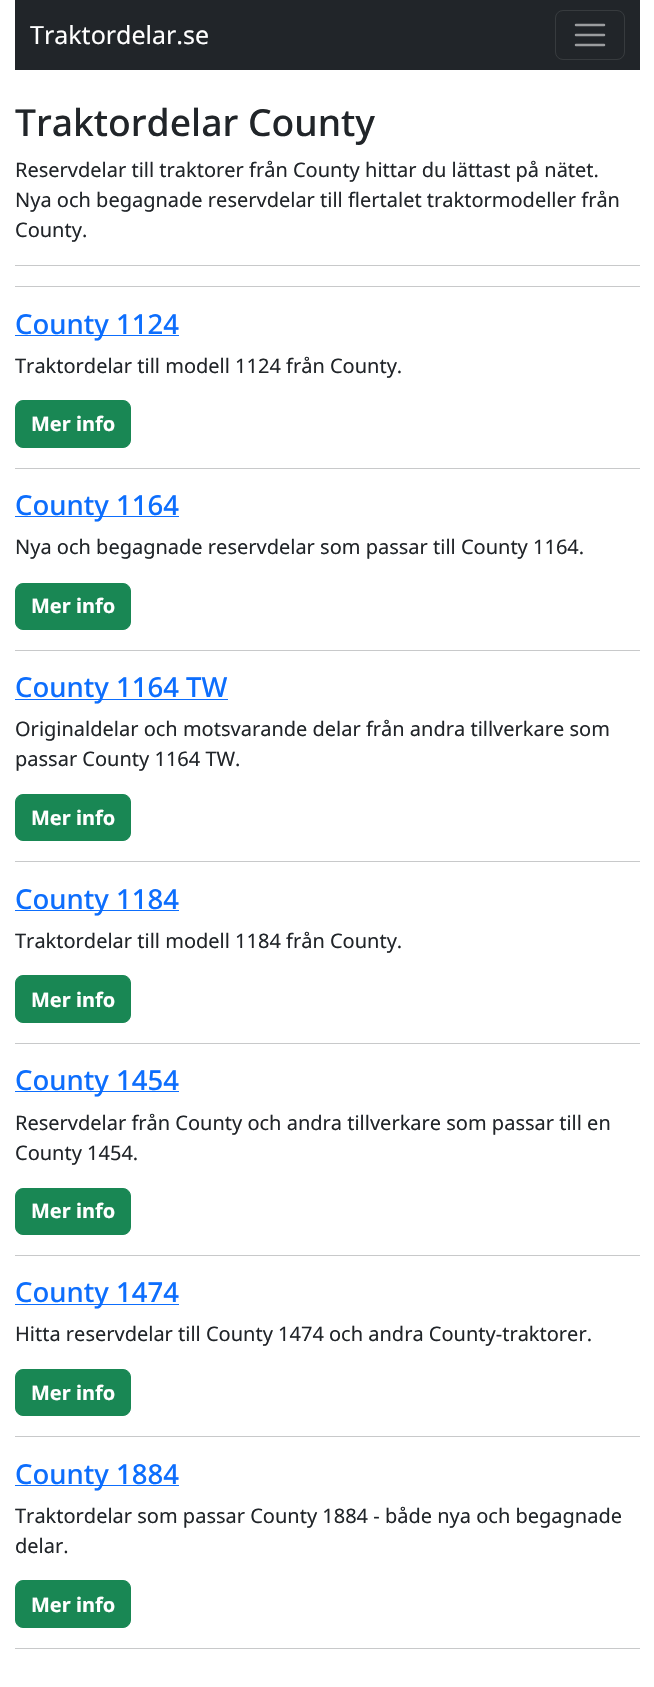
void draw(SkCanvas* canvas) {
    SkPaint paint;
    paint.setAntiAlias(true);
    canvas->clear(0xFFFFFFFF);
    paint.setColor(0xFF212529);
    canvas->drawRect(SkRect::MakeXYWH(15, 0, 625, 70), paint);
    SkFont font1(fontMgr->matchFamilyStyle("Noto Sans", SkFontStyle::Normal()), 25);
    font1.setSubpixel(true);
    paint.setColor(0xFFFFFFFF);
    canvas->drawString("Traktordelar.se", 30, 44, font1, paint);
    paint.setStyle(SkPaint::kStroke_Style);
    paint.setStrokeWidth(1);
    paint.setColor(0xFF373B3E);
    canvas->drawRoundRect(SkRect::MakeXYWH(555.5f, 10.5f, 69, 49), 7.5f, 7.5f, paint);
    paint.setStrokeWidth(2.5f);
    paint.setStrokeCap(SkPaint::kRound_Cap);
    paint.setColor(0xFF9B9D9F);
    canvas->drawPath(SkPathBuilder().moveTo(576, 25).lineTo(604, 25).moveTo(576, 35).lineTo(604, 35).moveTo(576, 45).lineTo(604, 45).detach(), paint);
    SkFont font2(fontMgr->matchFamilyStyle("Noto Sans", SkFontStyle(500, SkFontStyle::kNormal_Width, SkFontStyle::kUpright_Slant)), 37.25f);
    font2.setSubpixel(true);
    paint.setStyle(SkPaint::kFill_Style);
    paint.setColor(0xFF212529);
    canvas->drawString("Traktordelar County", 15, 136, font2, paint);
    SkFont font3(fontMgr->matchFamilyStyle("Noto Sans", SkFontStyle::Normal()), 20);
    font3.setSubpixel(true);
    canvas->drawString("Reservdelar till traktorer från County hittar du lättast på nätet.", 15, 177, font3, paint);
    canvas->drawString("Nya och begagnade reservdelar till flertalet traktormodeller från", 15, 207, font3, paint);
    canvas->drawString("County.", 15, 237, font3, paint);
    paint.setColor(0xFFC8C9CA);
    canvas->drawRect(SkRect::MakeXYWH(15, 265, 625, 1), paint);
    canvas->drawRect(SkRect::MakeXYWH(15, 286, 625, 1), paint);
    paint.setColor(0xFF0D6EFD);
    canvas->drawRect(SkRect::MakeXYWH(15, 335, 164, 1), paint);
    SkFont font4(fontMgr->matchFamilyStyle("Noto Sans", SkFontStyle(500, SkFontStyle::kNormal_Width, SkFontStyle::kUpright_Slant)), 27.5f);
    font4.setSubpixel(true);
    canvas->drawString("County 1124", 15, 334, font4, paint);
    paint.setColor(0xFF212529);
    canvas->drawString("Traktordelar till modell 1124 från County.", 15, 373, font3, paint);
    paint.setColor(0xFF198754);
    canvas->drawRoundRect(SkRect::MakeXYWH(15.5f, 400.5f, 115, 47), 7.5f, 7.5f, paint);
    paint.setStyle(SkPaint::kStroke_Style);
    paint.setStrokeWidth(1);
    paint.setStrokeCap(SkPaint::kButt_Cap);
    canvas->drawRoundRect(SkRect::MakeXYWH(15.5f, 400.5f, 115, 47), 7.5f, 7.5f, paint);
    SkFont font5(fontMgr->matchFamilyStyle("Noto Sans", SkFontStyle::Bold()), 20);
    font5.setSubpixel(true);
    paint.setStyle(SkPaint::kFill_Style);
    paint.setColor(0xFFFFFFFF);
    canvas->drawString("Mer info", 31, 431, font5, paint);
    paint.setColor(0xFFC8C9CA);
    canvas->drawRect(SkRect::MakeXYWH(15, 468, 625, 1), paint);
    paint.setColor(0xFF0D6EFD);
    canvas->drawRect(SkRect::MakeXYWH(15, 516, 164, 1), paint);
    canvas->drawString("County 1164", 15, 515, font4, paint);
    paint.setColor(0xFF212529);
    canvas->drawString("Nya och begagnade reservdelar som passar till County 1164.", 15, 554, font3, paint);
    paint.setColor(0xFF198754);
    canvas->drawRoundRect(SkRect::MakeXYWH(15.5f, 583.5f, 115, 46), 7.5f, 7.5f, paint);
    paint.setStyle(SkPaint::kStroke_Style);
    canvas->drawRoundRect(SkRect::MakeXYWH(15.5f, 583.5f, 115, 46), 7.5f, 7.5f, paint);
    paint.setStyle(SkPaint::kFill_Style);
    paint.setColor(0xFFFFFFFF);
    canvas->drawString("Mer info", 31, 613, font5, paint);
    paint.setColor(0xFFC8C9CA);
    canvas->drawRect(SkRect::MakeXYWH(15, 650, 625, 1), paint);
    paint.setColor(0xFF0D6EFD);
    canvas->drawRect(SkRect::MakeXYWH(15, 699, 213, 1), paint);
    canvas->drawString("County 1164 TW", 15, 697, font4, paint);
    paint.setColor(0xFF212529);
    canvas->drawString("Originaldelar och motsvarande delar från andra tillverkare som", 15, 736, font3, paint);
    canvas->drawString("passar County 1164 TW.", 15, 766, font3, paint);
    paint.setColor(0xFF198754);
    canvas->drawRoundRect(SkRect::MakeXYWH(15.5f, 794.5f, 115, 46), 7.5f, 7.5f, paint);
    paint.setStyle(SkPaint::kStroke_Style);
    canvas->drawRoundRect(SkRect::MakeXYWH(15.5f, 794.5f, 115, 46), 7.5f, 7.5f, paint);
    paint.setStyle(SkPaint::kFill_Style);
    paint.setColor(0xFFFFFFFF);
    canvas->drawString("Mer info", 31, 825, font5, paint);
    paint.setColor(0xFFC8C9CA);
    canvas->drawRect(SkRect::MakeXYWH(15, 861, 625, 1), paint);
    paint.setColor(0xFF0D6EFD);
    canvas->drawRect(SkRect::MakeXYWH(15, 910, 164, 1), paint);
    canvas->drawString("County 1184", 15, 909, font4, paint);
    paint.setColor(0xFF212529);
    canvas->drawString("Traktordelar till modell 1184 från County.", 15, 948, font3, paint);
    paint.setColor(0xFF198754);
    canvas->drawRoundRect(SkRect::MakeXYWH(15.5f, 975.5f, 115, 47), 7.5f, 7.5f, paint);
    paint.setStyle(SkPaint::kStroke_Style);
    canvas->drawRoundRect(SkRect::MakeXYWH(15.5f, 975.5f, 115, 47), 7.5f, 7.5f, paint);
    paint.setStyle(SkPaint::kFill_Style);
    paint.setColor(0xFFFFFFFF);
    canvas->drawString("Mer info", 31, 1007, font5, paint);
    paint.setColor(0xFFC8C9CA);
    canvas->drawRect(SkRect::MakeXYWH(15, 1043, 625, 1), paint);
    paint.setColor(0xFF0D6EFD);
    canvas->drawRect(SkRect::MakeXYWH(15, 1091, 164, 1), paint);
    canvas->drawString("County 1454", 15, 1090, font4, paint);
    paint.setColor(0xFF212529);
    canvas->drawString("Reservdelar från County och andra tillverkare som passar till en", 15, 1130, font3, paint);
    canvas->drawString("County 1454.", 15, 1160, font3, paint);
    paint.setColor(0xFF198754);
    canvas->drawRoundRect(SkRect::MakeXYWH(15.5f, 1188.5f, 115, 46), 7.5f, 7.5f, paint);
    paint.setStyle(SkPaint::kStroke_Style);
    canvas->drawRoundRect(SkRect::MakeXYWH(15.5f, 1188.5f, 115, 46), 7.5f, 7.5f, paint);
    paint.setStyle(SkPaint::kFill_Style);
    paint.setColor(0xFFFFFFFF);
    canvas->drawString("Mer info", 31, 1218, font5, paint);
    paint.setColor(0xFFC8C9CA);
    canvas->drawRect(SkRect::MakeXYWH(15, 1255, 625, 1), paint);
    paint.setColor(0xFF0D6EFD);
    canvas->drawRect(SkRect::MakeXYWH(15, 1304, 164, 1), paint);
    canvas->drawString("County 1474", 15, 1302, font4, paint);
    paint.setColor(0xFF212529);
    canvas->drawString("Hitta reservdelar till County 1474 och andra County-traktorer.", 15, 1341, font3, paint);
    paint.setColor(0xFF198754);
    canvas->drawRoundRect(SkRect::MakeXYWH(15.5f, 1369.5f, 115, 46), 7.5f, 7.5f, paint);
    paint.setStyle(SkPaint::kStroke_Style);
    canvas->drawRoundRect(SkRect::MakeXYWH(15.5f, 1369.5f, 115, 46), 7.5f, 7.5f, paint);
    paint.setStyle(SkPaint::kFill_Style);
    paint.setColor(0xFFFFFFFF);
    canvas->drawString("Mer info", 31, 1400, font5, paint);
    paint.setColor(0xFFC8C9CA);
    canvas->drawRect(SkRect::MakeXYWH(15, 1436, 625, 1), paint);
    paint.setColor(0xFF0D6EFD);
    canvas->drawRect(SkRect::MakeXYWH(15, 1485, 164, 1), paint);
    canvas->drawString("County 1884", 15, 1484, font4, paint);
    paint.setColor(0xFF212529);
    canvas->drawString("Traktordelar som passar County 1884 - både nya och begagnade", 15, 1523, font3, paint);
    canvas->drawString("delar.", 15, 1553, font3, paint);
    paint.setColor(0xFF198754);
    canvas->drawRoundRect(SkRect::MakeXYWH(15.5f, 1580.5f, 115, 47), 7.5f, 7.5f, paint);
    paint.setStyle(SkPaint::kStroke_Style);
    canvas->drawRoundRect(SkRect::MakeXYWH(15.5f, 1580.5f, 115, 47), 7.5f, 7.5f, paint);
    paint.setStyle(SkPaint::kFill_Style);
    paint.setColor(0xFFFFFFFF);
    canvas->drawString("Mer info", 31, 1612, font5, paint);
    paint.setColor(0xFFC8C9CA);
    canvas->drawRect(SkRect::MakeXYWH(15, 1648, 625, 1), paint);
}
